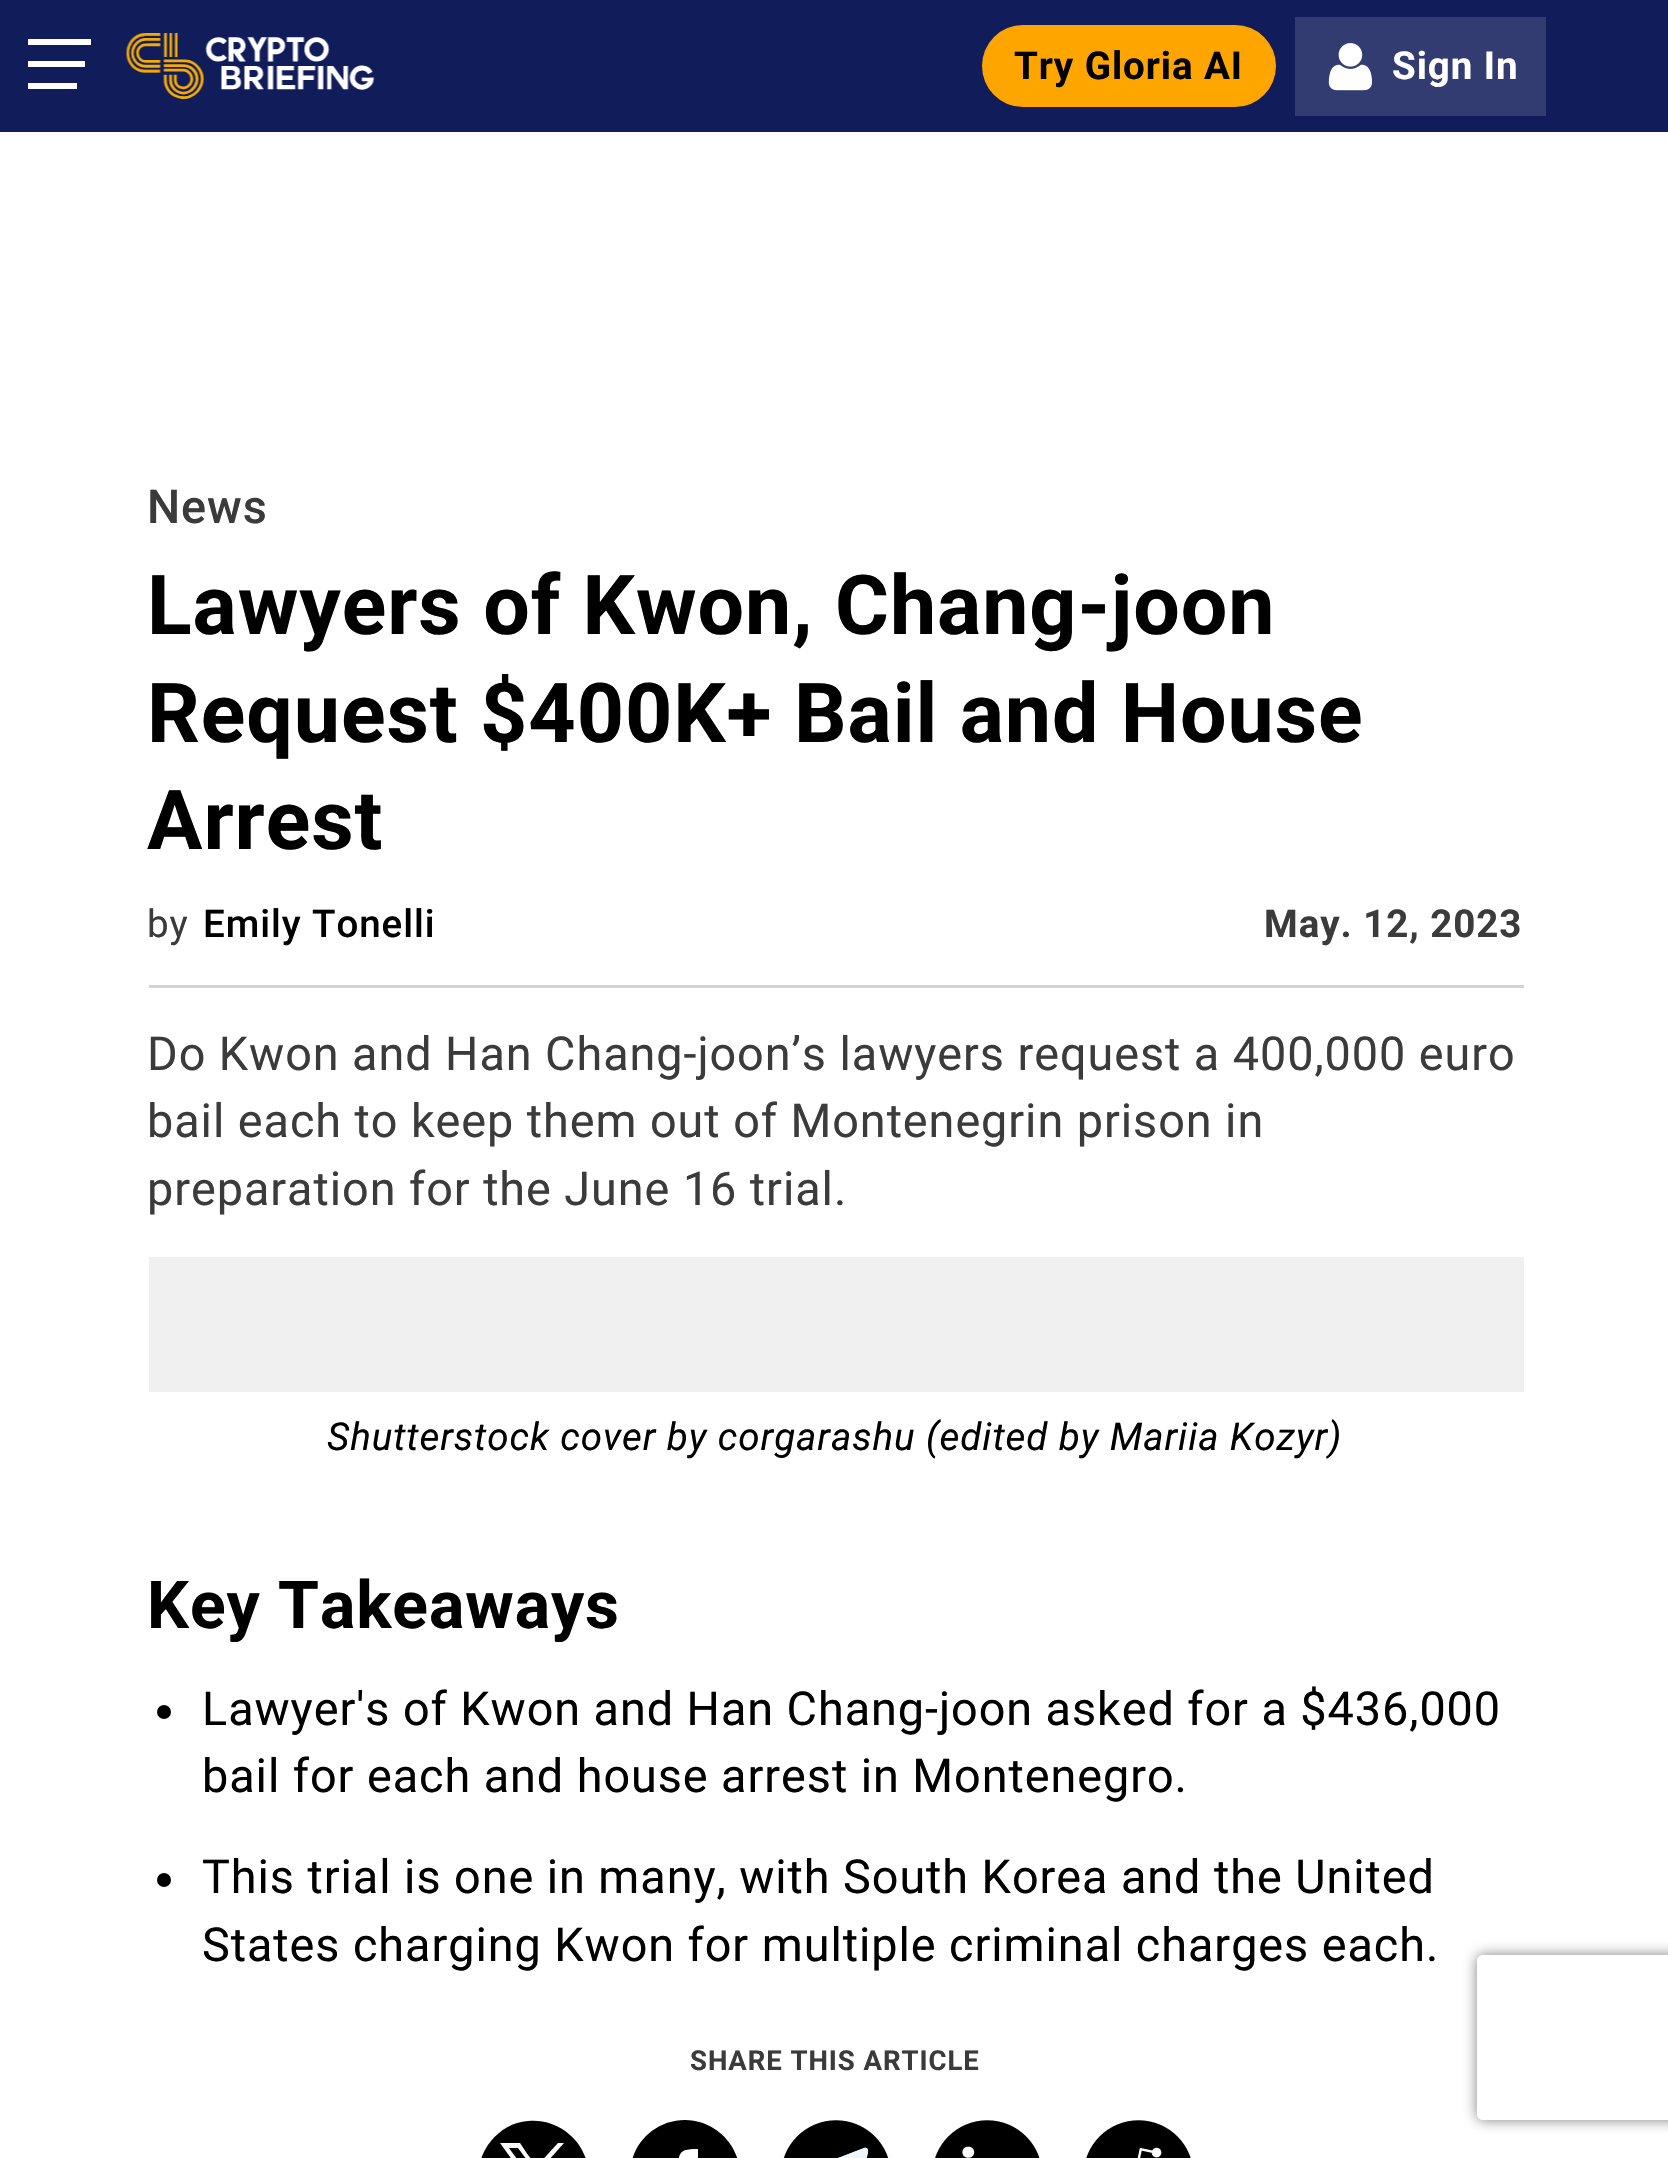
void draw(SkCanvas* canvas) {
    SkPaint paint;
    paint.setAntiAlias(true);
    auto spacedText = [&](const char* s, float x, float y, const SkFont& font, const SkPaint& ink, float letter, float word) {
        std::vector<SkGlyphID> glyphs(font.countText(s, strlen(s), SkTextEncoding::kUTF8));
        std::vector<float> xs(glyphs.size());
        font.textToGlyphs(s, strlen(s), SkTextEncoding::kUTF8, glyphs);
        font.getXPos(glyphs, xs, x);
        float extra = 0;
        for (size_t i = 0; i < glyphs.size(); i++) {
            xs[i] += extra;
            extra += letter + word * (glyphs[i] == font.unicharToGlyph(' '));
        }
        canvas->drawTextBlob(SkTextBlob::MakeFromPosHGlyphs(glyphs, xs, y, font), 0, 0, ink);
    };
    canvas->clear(0xFFFFFFFF);
    paint.setColor(0xFF111D5B);
    canvas->drawRect(SkRect::MakeXYWH(0, 0, 1668, 132), paint);
    paint.setColor(0xFFFFFFFF);
    canvas->drawRect(SkRect::MakeXYWH(28, 39, 63, 6), paint);
    canvas->drawRect(SkRect::MakeXYWH(28, 61, 57, 6), paint);
    canvas->drawRect(SkRect::MakeXYWH(28, 83, 49, 6), paint);
    canvas->drawImageRect(SkImages::DeferredFromEncodedData(SkData::MakeFromFileName("img1.png")), SkRect::MakeXYWH(126, 33, 249, 66), SkSamplingOptions());
    paint.setColor(0xFFFFA500);
    canvas->drawRoundRect(SkRect::MakeXYWH(982, 25, 294, 82), 41, 41, paint);
    SkFont font1(fontMgr->matchFamilyStyle("Roboto", SkFontStyle::Bold()), 38.5f);
    font1.setSubpixel(true);
    paint.setColor(0xFF000000);
    spacedText("Try Gloria AI", 1014, 79, font1, paint, 0.95f, 0);
    paint.setColor(0xFF323C71);
    canvas->drawRect(SkRect::MakeXYWH(1295, 17, 251, 99), paint);
    canvas->drawImageRect(SkImages::DeferredFromEncodedData(SkData::MakeFromFileName("img2.png")), SkRect::MakeXYWH(1328, 43, 44, 48), SkSamplingOptions());
    paint.setColor(0xFFFFFFFF);
    spacedText("Sign In", 1392, 79, font1, paint, 0.95f, 0);
    paint.setColor(0xFFD4D4D4);
    canvas->drawRect(SkRect::MakeXYWH(149, 985, 1375, 3), paint);
    SkFont font2(fontMgr->matchFamilyStyle("Roboto", SkFontStyle(500, SkFontStyle::kNormal_Width, SkFontStyle::kUpright_Slant)), 46.75f);
    font2.setSubpixel(true);
    paint.setColor(0xFF3B3B3B);
    spacedText("News", 147, 523, font2, paint, 0.95f, 0);
    SkFont font3(fontMgr->matchFamilyStyle("Roboto", SkFontStyle::Bold()), 82.5f);
    font3.setSubpixel(true);
    paint.setColor(0xFF000000);
    spacedText("Lawyers of Kwon, Chang-joon", 147, 634, font3, paint, 0.95f, 0);
    spacedText("Request $400K+ Bail and House", 147, 742, font3, paint, 0.95f, 0);
    spacedText("Arrest", 147, 849, font3, paint, 0.95f, 0);
    SkFont font4(fontMgr->matchFamilyStyle("Roboto", SkFontStyle::Normal()), 38.5f);
    font4.setSubpixel(true);
    paint.setColor(0xFF3B3B3B);
    spacedText("by", 147, 937, font4, paint, 0.95f, 0);
    SkFont font5(fontMgr->matchFamilyStyle("Roboto", SkFontStyle(500, SkFontStyle::kNormal_Width, SkFontStyle::kUpright_Slant)), 38.5f);
    font5.setSubpixel(true);
    paint.setColor(0xFF000000);
    spacedText("Emily Tonelli", 203, 937, font5, paint, 0.95f, 0);
    paint.setColor(0xFF3B3B3B);
    spacedText("May. 12, 2023", 1264, 937, font1, paint, 0.95f, 0);
    SkFont font6(fontMgr->matchFamilyStyle("Roboto", SkFontStyle::Normal()), 46.75f);
    font6.setSubpixel(true);
    spacedText("Do Kwon and Han Chang-joon’s lawyers request a 400,000 euro", 147, 1070, font6, paint, 0.95f, 0);
    spacedText("bail each to keep them out of Montenegrin prison in", 147, 1137, font6, paint, 0.95f, 0);
    spacedText("preparation for the June 16 trial.", 147, 1205, font6, paint, 0.95f, 0);
    paint.setColor(0xFFF0F0F0);
    canvas->drawRect(SkRect::MakeXYWH(149, 1257, 1375, 135), paint);
    SkFont font7(fontMgr->matchFamilyStyle("Roboto", SkFontStyle::Italic()), 38.5f);
    font7.setSubpixel(true);
    paint.setColor(0xFF000000);
    spacedText("Shutterstock cover by corgarashu (edited by Mariia Kozyr)", 327, 1450, font7, paint, 0.95f, 0);
    SkFont font8(fontMgr->matchFamilyStyle("Roboto", SkFontStyle::Bold()), 66);
    font8.setSubpixel(true);
    spacedText("Key Takeaways", 147, 1628, font8, paint, 0.95f, 0);
    canvas->drawCircle(164, 1712, 7, paint);
    spacedText("Lawyer's of Kwon and Han Chang-joon asked for a $436,000", 202, 1725, font6, paint, 0.95f, 0);
    spacedText("bail for each and house arrest in Montenegro.", 202, 1792, font6, paint, 0.95f, 0);
    canvas->drawCircle(164, 1880, 7, paint);
    spacedText("This trial is one in many, with South Korea and the United", 202, 1893, font6, paint, 0.95f, 0);
    spacedText("States charging Kwon for multiple criminal charges each.", 202, 1961, font6, paint, 0.95f, 0);
    SkFont font9(fontMgr->matchFamilyStyle("Roboto", SkFontStyle::Bold()), 27.5f);
    font9.setSubpixel(true);
    paint.setColor(0xFF3B3B3B);
    spacedText("SHARE THIS ARTICLE", 690, 2070, font9, paint, 0.95f, 0);
    paint.setColor(0xFF000000);
    canvas->drawPath(SkPathBuilder().moveTo(528, 2121).cubicTo(513, 2122, 500, 2130, 491, 2141).cubicTo(460, 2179, 491, 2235, 540, 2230).cubicTo(550, 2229, 560, 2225, 568, 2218).cubicTo(583, 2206, 591, 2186, 588, 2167).cubicTo(583, 2138, 556, 2118, 528, 2121).close().moveTo(528, 2155).lineTo(537, 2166).lineTo(558, 2143).lineTo(564, 2143).lineTo(540, 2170).lineTo(567, 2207).lineTo(547, 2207).lineTo(528, 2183).lineTo(505, 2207).cubicTo(500, 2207, 498, 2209, 502, 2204).lineTo(526, 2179).lineTo(500, 2143).lineTo(520, 2143).close().detach(), paint);
    canvas->drawPath(SkPathBuilder().moveTo(509, 2148).lineTo(549, 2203).lineTo(558, 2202).lineTo(518, 2148).close().detach(), paint);
    canvas->drawPath(SkPathBuilder().moveTo(685, 2120).cubicTo(654, 2120, 630, 2145, 630, 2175).cubicTo(630, 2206, 654, 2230, 685, 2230).cubicTo(715, 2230, 740, 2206, 740, 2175).cubicTo(740, 2145, 715, 2120, 685, 2120).close().moveTo(698, 2158).cubicTo(687, 2158, 687, 2157, 687, 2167).lineTo(698, 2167).lineTo(696, 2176).lineTo(687, 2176).lineTo(687, 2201).lineTo(678, 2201).lineTo(678, 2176).lineTo(669, 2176).lineTo(669, 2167).lineTo(678, 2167).cubicTo(678, 2150, 683, 2149, 698, 2149).close().detach(), paint);
    canvas->drawImageRect(SkImages::DeferredFromEncodedData(SkData::MakeFromFileName("img3.png")), SkRect::MakeXYWH(783, 2120, 106, 38), SkSamplingOptions());
    canvas->drawImageRect(SkImages::DeferredFromEncodedData(SkData::MakeFromFileName("img4.png")), SkRect::MakeXYWH(935, 2120, 105, 38), SkSamplingOptions());
    canvas->drawImageRect(SkImages::DeferredFromEncodedData(SkData::MakeFromFileName("img5.png")), SkRect::MakeXYWH(1086, 2120, 105, 38), SkSamplingOptions());
    canvas->save();
    canvas->clipPath(SkPathBuilder(SkPathFillType::kEvenOdd).moveTo(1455, 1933).lineTo(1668, 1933).lineTo(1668, 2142).lineTo(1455, 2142).close().moveTo(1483, 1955).lineTo(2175, 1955).cubicTo(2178.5f, 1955, 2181, 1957.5f, 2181, 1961).lineTo(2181, 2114).cubicTo(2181, 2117.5f, 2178.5f, 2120, 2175, 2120).lineTo(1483, 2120).cubicTo(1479.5f, 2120, 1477, 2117.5f, 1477, 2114).lineTo(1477, 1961).cubicTo(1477, 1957.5f, 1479.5f, 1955, 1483, 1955).close().detach(), true);
    paint.setColor(0xFF808080);
    paint.setMaskFilter(SkMaskFilter::MakeBlur(kNormal_SkBlurStyle, 7));
    canvas->drawRoundRect(SkRect::MakeXYWH(1477, 1955, 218, 165), 6, 6, paint);
    paint.setMaskFilter(nullptr);
    canvas->restore();
}
